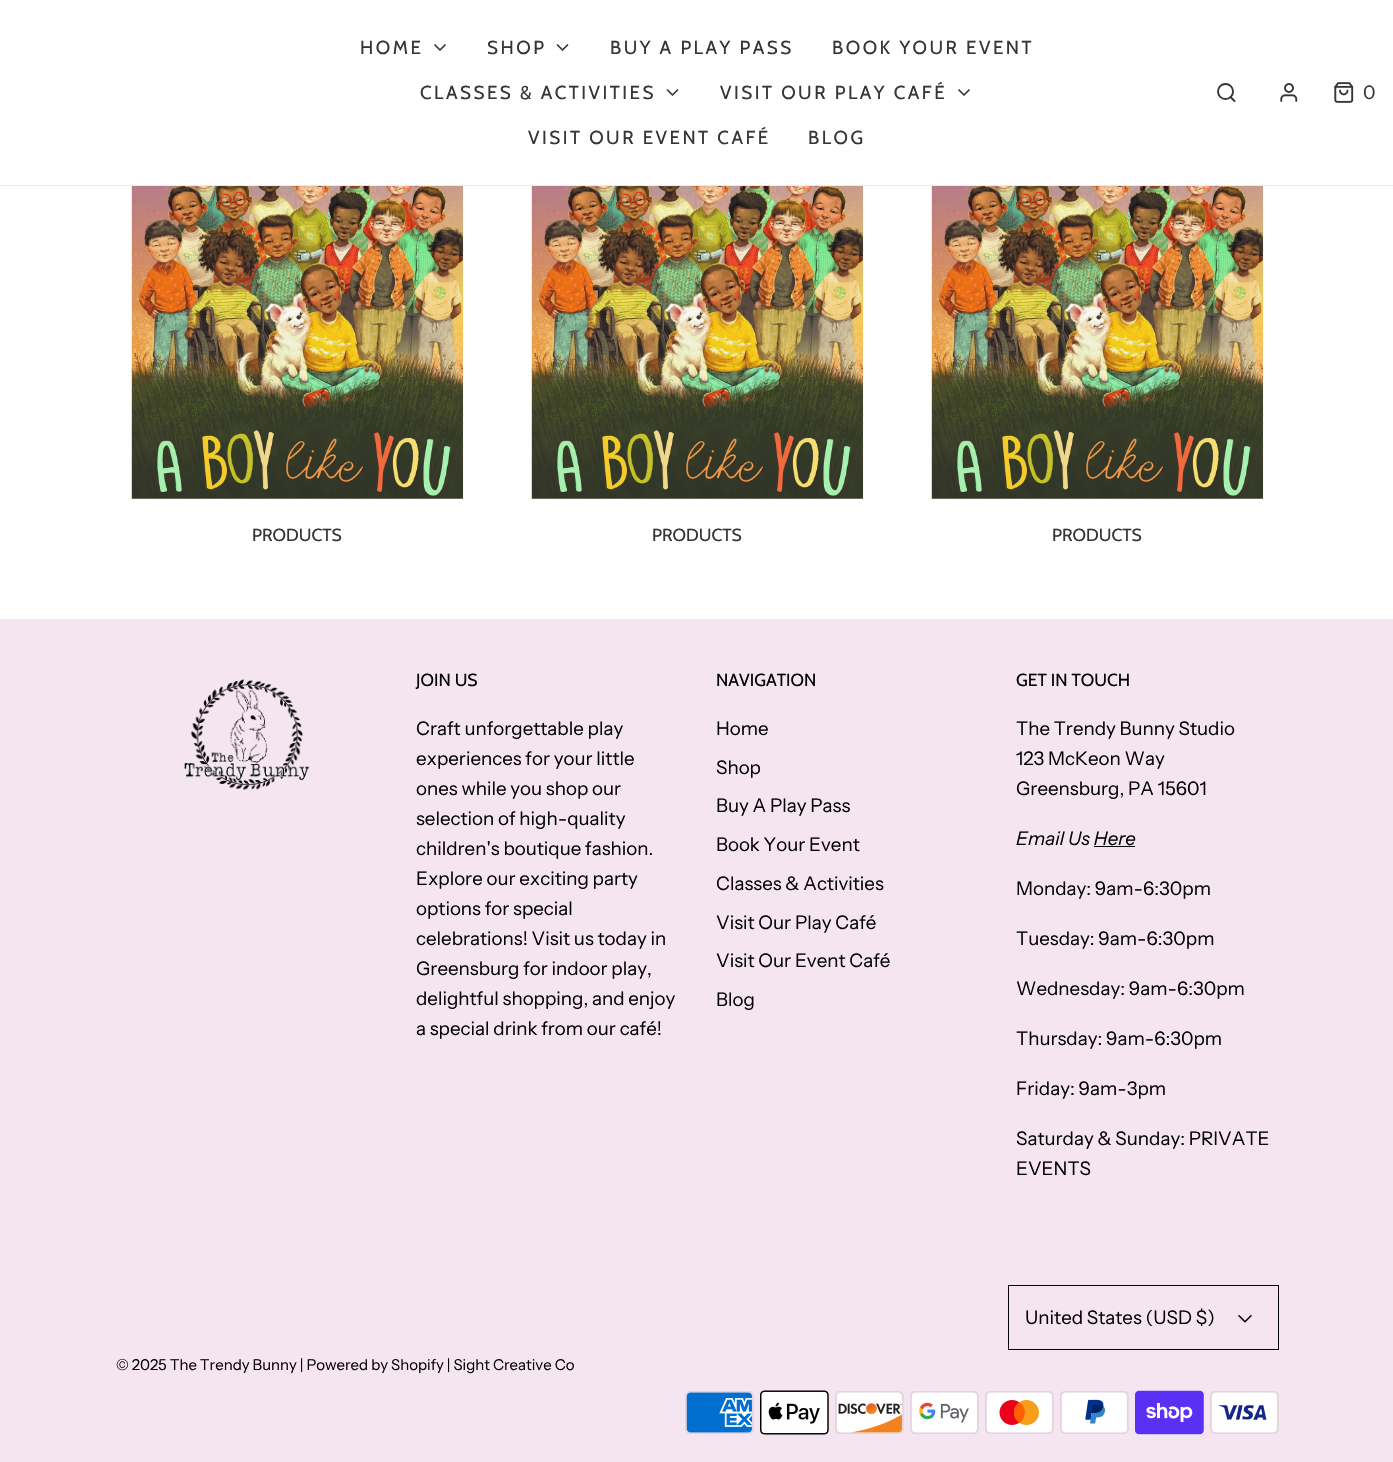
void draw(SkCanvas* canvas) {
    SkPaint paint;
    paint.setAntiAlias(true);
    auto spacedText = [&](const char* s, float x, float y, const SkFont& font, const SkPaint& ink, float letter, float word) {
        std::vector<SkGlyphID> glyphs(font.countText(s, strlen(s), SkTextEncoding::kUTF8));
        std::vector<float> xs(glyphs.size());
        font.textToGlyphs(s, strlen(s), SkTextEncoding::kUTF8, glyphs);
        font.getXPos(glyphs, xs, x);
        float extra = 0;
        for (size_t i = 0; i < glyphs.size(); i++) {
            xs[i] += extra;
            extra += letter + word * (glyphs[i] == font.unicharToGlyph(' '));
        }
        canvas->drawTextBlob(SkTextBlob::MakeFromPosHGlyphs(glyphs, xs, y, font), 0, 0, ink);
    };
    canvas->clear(0xFFFFFFFF);
    paint.setColor(0xFFEBEBEB);
    canvas->drawRect(SkRect::MakeXYWH(0, 185, 1393, 1), paint);
    SkFont font1(fontMgr->matchFamilyStyle("Cabin", SkFontStyle::Normal()), 18.75f);
    font1.setSubpixel(true);
    paint.setColor(0xFF363636);
    spacedText("HOME", 360, 54, font1, paint, 2.5f, 0);
    paint.setStyle(SkPaint::kStroke_Style);
    paint.setStrokeWidth(1.7f);
    paint.setStrokeCap(SkPaint::kRound_Cap);
    paint.setStrokeJoin(SkPaint::kRound_Join);
    canvas->drawPath(SkPathBuilder().moveTo(435, 45).lineTo(440, 50).lineTo(445, 45).detach(), paint);
    paint.setStyle(SkPaint::kFill_Style);
    spacedText("SHOP", 487, 54, font1, paint, 2.5f, 0);
    paint.setStyle(SkPaint::kStroke_Style);
    canvas->drawPath(SkPathBuilder().moveTo(557.5f, 45).lineTo(562.5f, 50).lineTo(567.5f, 45).detach(), paint);
    paint.setStyle(SkPaint::kFill_Style);
    spacedText("BUY A PLAY PASS", 610, 54, font1, paint, 2.5f, 0);
    spacedText("BOOK YOUR EVENT", 832, 54, font1, paint, 2.5f, 0);
    spacedText("CLASSES & ACTIVITIES", 420, 99, font1, paint, 2.5f, 0);
    paint.setStyle(SkPaint::kStroke_Style);
    canvas->drawPath(SkPathBuilder().moveTo(667.5f, 90).lineTo(672.5f, 95).lineTo(677.5f, 90).detach(), paint);
    paint.setStyle(SkPaint::kFill_Style);
    spacedText("VISIT OUR PLAY CAFÉ", 720, 99, font1, paint, 2.5f, 0);
    paint.setStyle(SkPaint::kStroke_Style);
    canvas->drawPath(SkPathBuilder().moveTo(959, 90).lineTo(964, 95).lineTo(969, 90).detach(), paint);
    paint.setStyle(SkPaint::kFill_Style);
    spacedText("VISIT OUR EVENT CAFÉ", 528, 144, font1, paint, 2.5f, 0);
    spacedText("BLOG", 808, 144, font1, paint, 2.5f, 0);
    paint.setStyle(SkPaint::kStroke_Style);
    paint.setStrokeWidth(1.9f);
    paint.setStrokeCap(SkPaint::kButt_Cap);
    paint.setStrokeJoin(SkPaint::kMiter_Join);
    canvas->drawCircle(1225.5f, 91.5f, 7.5f, paint);
    paint.setStrokeCap(SkPaint::kRound_Cap);
    paint.setStrokeJoin(SkPaint::kRound_Join);
    canvas->drawPath(SkPathBuilder().moveTo(1234.5f, 101).lineTo(1230.5f, 97).detach(), paint);
    canvas->drawImageRect(SkImages::DeferredFromEncodedData(SkData::MakeFromFileName("img1.png")), SkRect::MakeXYWH(1280, 83, 18, 19), SkSamplingOptions());
    canvas->drawImageRect(SkImages::DeferredFromEncodedData(SkData::MakeFromFileName("img2.png")), SkRect::MakeXYWH(1334, 82, 20, 21), SkSamplingOptions());
    SkFont font2(fontMgr->matchFamilyStyle("Instrument Sans", SkFontStyle::Normal()), 18.75f);
    font2.setSubpixel(true);
    paint.setStyle(SkPaint::kFill_Style);
    canvas->drawString("0", 1363, 99, font2, paint);
    canvas->drawImageRect(SkImages::DeferredFromEncodedData(SkData::MakeFromFileName("img3.png")), SkRect::MakeXYWH(131, 186, 333, 313), SkSamplingOptions());
    SkFont font3(fontMgr->matchFamilyStyle("Cabin", SkFontStyle::Normal()), 17.5f);
    font3.setSubpixel(true);
    canvas->drawString("PRODUCTS", 252, 541, font3, paint);
    canvas->drawImageRect(SkImages::DeferredFromEncodedData(SkData::MakeFromFileName("img3.png")), SkRect::MakeXYWH(531, 186, 333, 313), SkSamplingOptions());
    canvas->drawString("PRODUCTS", 652, 541, font3, paint);
    canvas->drawImageRect(SkImages::DeferredFromEncodedData(SkData::MakeFromFileName("img4.png")), SkRect::MakeXYWH(931, 186, 333, 313), SkSamplingOptions());
    canvas->drawString("PRODUCTS", 1052, 541, font3, paint);
    paint.setColor(0xFFF4E5F0);
    canvas->drawRect(SkRect::MakeXYWH(0, 619, 1393, 843), paint);
    canvas->drawImageRect(SkImages::DeferredFromEncodedData(SkData::MakeFromFileName("img5.png")), SkRect::MakeXYWH(184, 679, 126, 111), SkSamplingOptions());
    paint.setColor(0xFF050505);
    canvas->drawString("JOIN US", 416, 686, font3, paint);
    canvas->drawString("Craft unforgettable play", 416, 735, font2, paint);
    canvas->drawString("experiences for your little", 416, 765, font2, paint);
    canvas->drawString("ones while you shop our", 416, 795, font2, paint);
    canvas->drawString("selection of high-quality", 416, 825, font2, paint);
    canvas->drawString("children's boutique fashion.", 416, 855, font2, paint);
    canvas->drawString("Explore our exciting party", 416, 885, font2, paint);
    canvas->drawString("options for special", 416, 915, font2, paint);
    canvas->drawString("celebrations! Visit us today in", 416, 945, font2, paint);
    canvas->drawString("Greensburg for indoor play,", 416, 975, font2, paint);
    canvas->drawString("delightful shopping, and enjoy", 416, 1005, font2, paint);
    canvas->drawString("a special drink from our café!", 416, 1035, font2, paint);
    canvas->drawString("NAVIGATION", 716, 686, font3, paint);
    canvas->drawString("Home", 716, 735, font2, paint);
    canvas->drawString("Shop", 716, 774, font2, paint);
    canvas->drawString("Buy A Play Pass", 716, 812, font2, paint);
    canvas->drawString("Book Your Event", 716, 851, font2, paint);
    canvas->drawString("Classes & Activities", 716, 890, font2, paint);
    canvas->drawString("Visit Our Play Café", 716, 929, font2, paint);
    canvas->drawString("Visit Our Event Café", 716, 967, font2, paint);
    canvas->drawString("Blog", 716, 1006, font2, paint);
    canvas->drawString("GET IN TOUCH", 1016, 686, font3, paint);
    canvas->drawString("The Trendy Bunny Studio", 1016, 735, font2, paint);
    canvas->drawString("123 McKeon Way", 1016, 765, font2, paint);
    canvas->drawString("Greensburg, PA 15601", 1016, 795, font2, paint);
    SkFont font4(fontMgr->matchFamilyStyle("Instrument Sans", SkFontStyle::Italic()), 18.75f);
    font4.setSubpixel(true);
    canvas->drawString("Email Us Here", 1016, 845, font4, paint);
    canvas->drawRect(SkRect::MakeXYWH(1094, 846, 41, 1), paint);
    canvas->drawString("Monday: 9am-6:30pm", 1016, 895, font2, paint);
    canvas->drawString("Tuesday: 9am-6:30pm", 1016, 945, font2, paint);
    canvas->drawString("Wednesday: 9am-6:30pm", 1016, 995, font2, paint);
    canvas->drawString("Thursday: 9am-6:30pm", 1016, 1045, font2, paint);
    canvas->drawString("Friday: 9am-3pm", 1016, 1095, font2, paint);
    canvas->drawString("Saturday & Sunday: PRIVATE", 1016, 1145, font2, paint);
    canvas->drawString("EVENTS", 1016, 1175, font2, paint);
    paint.setStyle(SkPaint::kStroke_Style);
    paint.setStrokeWidth(1);
    paint.setStrokeCap(SkPaint::kButt_Cap);
    paint.setStrokeJoin(SkPaint::kMiter_Join);
    canvas->drawRect(SkRect::MakeXYWH(1008.5f, 1285.5f, 270, 64), paint);
    paint.setStyle(SkPaint::kFill_Style);
    canvas->drawString("United States (USD $)", 1025, 1324, font2, paint);
    canvas->drawImageRect(SkImages::DeferredFromEncodedData(SkData::MakeFromFileName("img6.png")), SkRect::MakeXYWH(1238, 1315, 14, 8), SkSamplingOptions());
    canvas->drawImageRect(SkImages::DeferredFromEncodedData(SkData::MakeFromFileName("img7.png")), SkRect::MakeXYWH(685, 1391, 69, 43), SkSamplingOptions());
    canvas->drawImageRect(SkImages::DeferredFromEncodedData(SkData::MakeFromFileName("img8.png")), SkRect::MakeXYWH(760, 1390, 69, 45), SkSamplingOptions());
    canvas->drawImageRect(SkImages::DeferredFromEncodedData(SkData::MakeFromFileName("img9.png")), SkRect::MakeXYWH(835, 1391, 69, 43), SkSamplingOptions());
    canvas->drawImageRect(SkImages::DeferredFromEncodedData(SkData::MakeFromFileName("img10.png")), SkRect::MakeXYWH(910, 1391, 69, 43), SkSamplingOptions());
    canvas->drawImageRect(SkImages::DeferredFromEncodedData(SkData::MakeFromFileName("img11.png")), SkRect::MakeXYWH(985, 1391, 69, 43), SkSamplingOptions());
    canvas->drawImageRect(SkImages::DeferredFromEncodedData(SkData::MakeFromFileName("img12.png")), SkRect::MakeXYWH(1060, 1391, 69, 43), SkSamplingOptions());
    canvas->drawImageRect(SkImages::DeferredFromEncodedData(SkData::MakeFromFileName("img13.png")), SkRect::MakeXYWH(1135, 1390, 69, 45), SkSamplingOptions());
    canvas->drawImageRect(SkImages::DeferredFromEncodedData(SkData::MakeFromFileName("img14.png")), SkRect::MakeXYWH(1210, 1391, 69, 43), SkSamplingOptions());
    SkFont font5(fontMgr->matchFamilyStyle("Instrument Sans", SkFontStyle::Normal()), 15);
    font5.setSubpixel(true);
    canvas->drawString("© 2025 The Trendy Bunny | Powered by Shopify | Sight Creative Co", 116, 1370, font5, paint);
}
